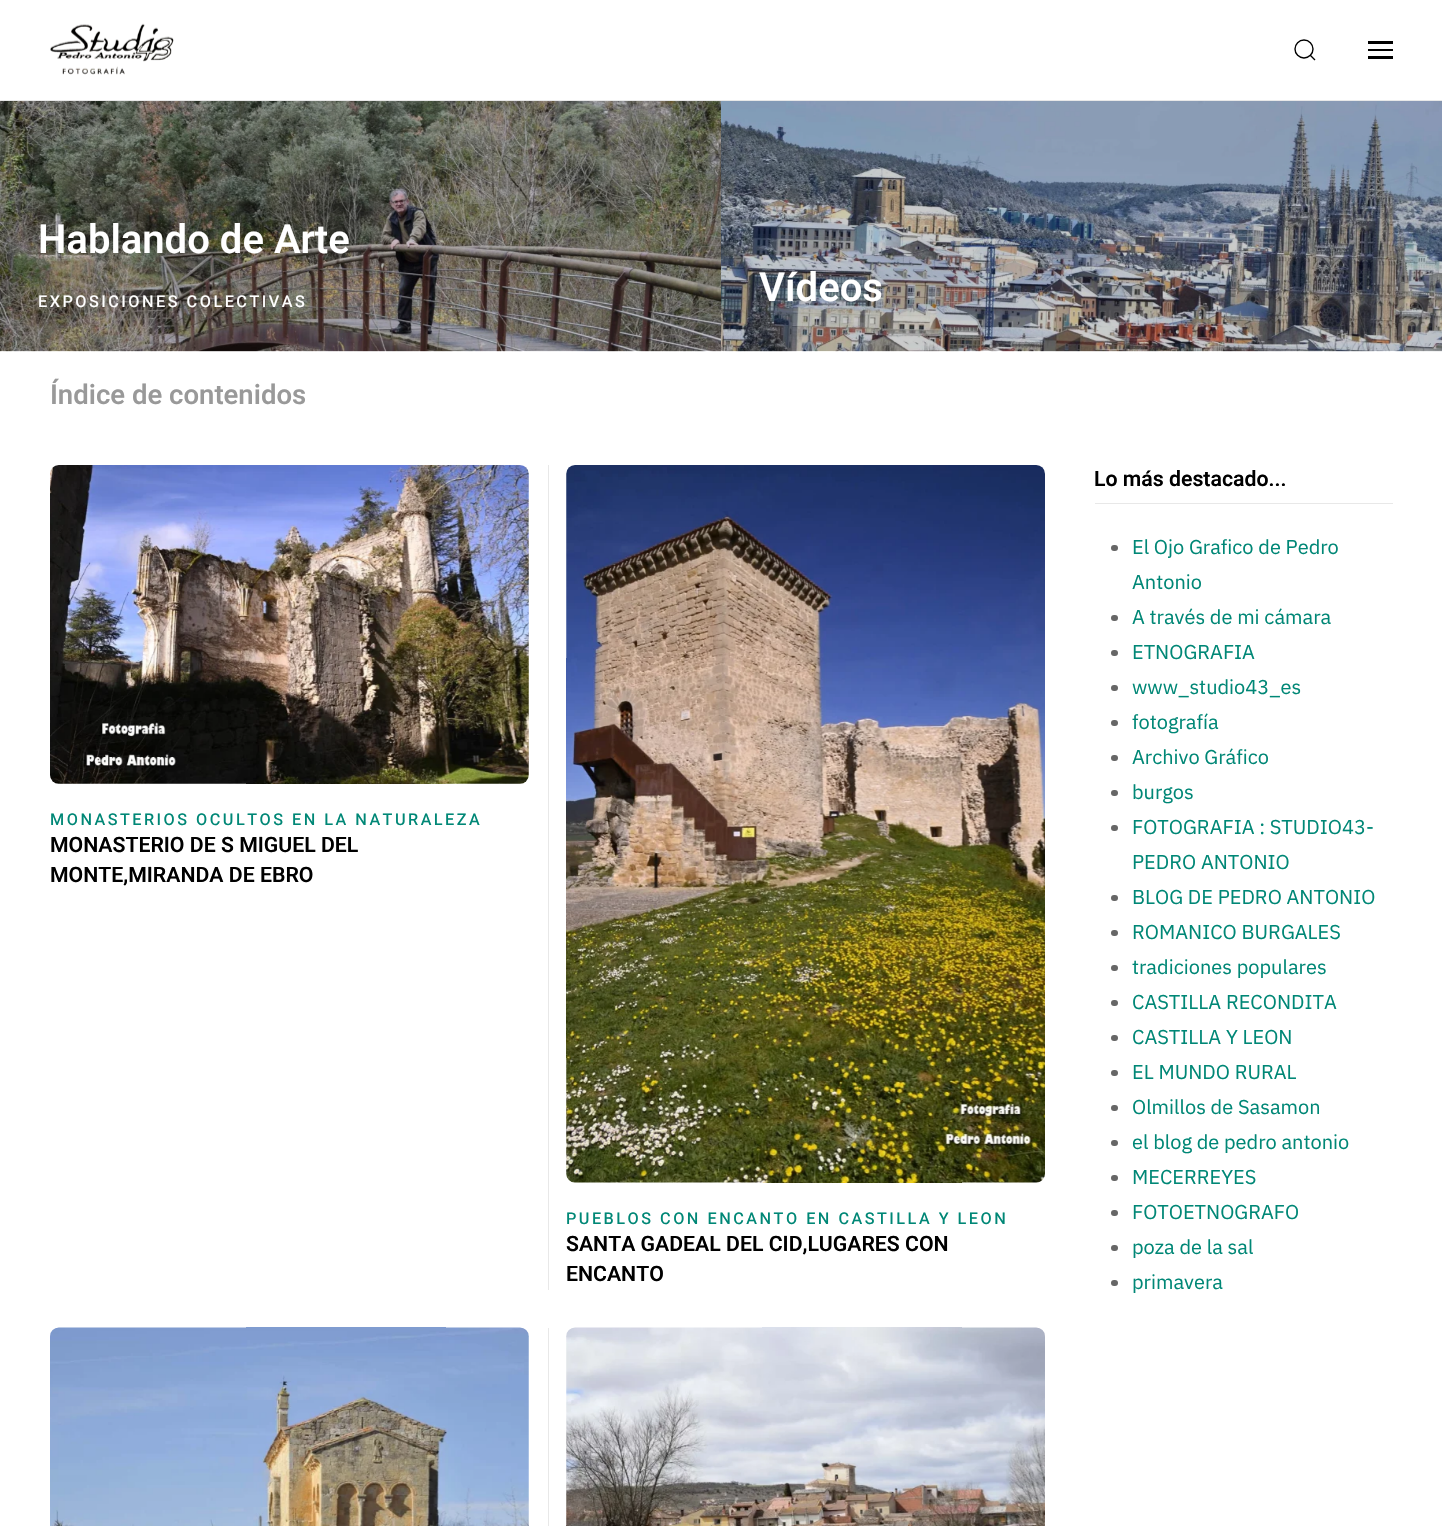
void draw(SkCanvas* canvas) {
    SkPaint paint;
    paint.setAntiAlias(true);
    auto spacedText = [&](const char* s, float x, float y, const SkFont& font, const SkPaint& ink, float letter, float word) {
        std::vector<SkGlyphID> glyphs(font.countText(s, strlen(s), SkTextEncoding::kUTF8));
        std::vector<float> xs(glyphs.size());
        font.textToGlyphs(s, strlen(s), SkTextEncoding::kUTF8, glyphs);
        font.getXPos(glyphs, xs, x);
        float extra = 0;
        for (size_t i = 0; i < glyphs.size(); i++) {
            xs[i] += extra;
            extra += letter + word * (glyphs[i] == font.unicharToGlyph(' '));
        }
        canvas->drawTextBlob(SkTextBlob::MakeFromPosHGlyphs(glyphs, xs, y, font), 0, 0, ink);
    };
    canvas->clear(0xFFFFFFFF);
    paint.setColor(0xFFE8E8E8);
    canvas->drawRect(SkRect::MakeXYWH(0, 100, 1442, 1), paint);
    canvas->drawImageRect(SkImages::DeferredFromEncodedData(SkData::MakeFromFileName("img1.png")), SkRect::MakeXYWH(50, 23, 124, 52), SkSamplingOptions());
    paint.setStyle(SkPaint::kStroke_Style);
    paint.setStrokeWidth(1.4f);
    paint.setColor(0xFF000000);
    canvas->drawCircle(1304, 49, 9, paint);
    canvas->drawPath(SkPathBuilder().moveTo(1310, 55).lineTo(1315, 60).close().detach(), paint);
    paint.setStyle(SkPaint::kFill_Style);
    canvas->drawRect(SkRect::MakeXYWH(1368, 41, 25, 3), paint);
    canvas->drawRect(SkRect::MakeXYWH(1368, 49, 25, 2), paint);
    canvas->drawRect(SkRect::MakeXYWH(1368, 56, 25, 3), paint);
    canvas->drawImageRect(SkImages::DeferredFromEncodedData(SkData::MakeFromFileName("img2.png")), SkRect::MakeXYWH(0, 101, 722, 251), SkSamplingOptions());
    SkFont font1(fontMgr->matchFamilyStyle("Heebo", SkFontStyle(600, SkFontStyle::kNormal_Width, SkFontStyle::kUpright_Slant)), 40);
    font1.setSubpixel(true);
    paint.setColor(0xFFFFFFFF);
    canvas->drawString("Hablando de Arte", 38, 253, font1, paint);
    SkFont font2(fontMgr->matchFamilyStyle("Heebo", SkFontStyle(500, SkFontStyle::kNormal_Width, SkFontStyle::kUpright_Slant)), 16.25f);
    font2.setSubpixel(true);
    spacedText("EXPOSICIONES COLECTIVAS", 38, 307, font2, paint, 2.5f, 0);
    canvas->drawImageRect(SkImages::DeferredFromEncodedData(SkData::MakeFromFileName("img3.png")), SkRect::MakeXYWH(721, 101, 721, 251), SkSamplingOptions());
    canvas->drawString("Vídeos", 759, 301, font1, paint);
    SkFont font3(fontMgr->matchFamilyStyle("Heebo", SkFontStyle(600, SkFontStyle::kNormal_Width, SkFontStyle::kUpright_Slant)), 27.5f);
    font3.setSubpixel(true);
    paint.setColor(0xFF999999);
    canvas->drawString("Índice de contenidos", 50, 404, font3, paint);
    canvas->drawImageRect(SkImages::DeferredFromEncodedData(SkData::MakeFromFileName("img4.png")), SkRect::MakeXYWH(50, 465, 479, 319), SkSamplingOptions());
    paint.setColor(0xFF008776);
    spacedText("MONASTERIOS OCULTOS EN LA NATURALEZA", 50, 825, font2, paint, 2.5f, 0);
    SkFont font4(fontMgr->matchFamilyStyle("Heebo", SkFontStyle(600, SkFontStyle::kNormal_Width, SkFontStyle::kUpright_Slant)), 21.25f);
    font4.setSubpixel(true);
    paint.setColor(0xFF000000);
    canvas->drawString("MONASTERIO DE S MIGUEL DEL", 50, 852, font4, paint);
    canvas->drawString("MONTE,MIRANDA DE EBRO", 50, 882, font4, paint);
    paint.setColor(0xFFE8E8E8);
    canvas->drawRect(SkRect::MakeXYWH(548, 465, 1, 825), paint);
    canvas->drawImageRect(SkImages::DeferredFromEncodedData(SkData::MakeFromFileName("img5.png")), SkRect::MakeXYWH(566, 465, 479, 718), SkSamplingOptions());
    paint.setColor(0xFF008776);
    spacedText("PUEBLOS CON ENCANTO EN CASTILLA Y LEON", 566, 1224, font2, paint, 2.5f, 0);
    paint.setColor(0xFF000000);
    canvas->drawString("SANTA GADEAL DEL CID,LUGARES CON", 566, 1251, font4, paint);
    canvas->drawString("ENCANTO", 566, 1281, font4, paint);
    canvas->drawImageRect(SkImages::DeferredFromEncodedData(SkData::MakeFromFileName("img6.png")), SkRect::MakeXYWH(50, 1327, 479, 199), SkSamplingOptions());
    paint.setColor(0xFFE8E8E8);
    canvas->drawRect(SkRect::MakeXYWH(548, 1328, 1, 198), paint);
    canvas->drawImageRect(SkImages::DeferredFromEncodedData(SkData::MakeFromFileName("img7.png")), SkRect::MakeXYWH(566, 1327, 479, 199), SkSamplingOptions());
    canvas->drawRect(SkRect::MakeXYWH(1095, 503, 298, 1), paint);
    paint.setColor(0xFF000000);
    canvas->drawString("Lo más destacado...", 1094, 486, font4, paint);
    paint.setColor(0xFF666666);
    canvas->drawRoundRect(SkRect::MakeXYWH(1111, 545, 7, 6), 3, 3, paint);
    SkFont font5(fontMgr->matchFamilyStyle("IBM Plex Sans", SkFontStyle::Normal()), 20);
    font5.setSubpixel(true);
    paint.setColor(0xFF008776);
    canvas->drawString("El Ojo Grafico de Pedro", 1132, 554, font5, paint);
    canvas->drawString("Antonio", 1132, 589, font5, paint);
    paint.setColor(0xFF666666);
    canvas->drawRoundRect(SkRect::MakeXYWH(1111, 615, 7, 6), 3, 3, paint);
    paint.setColor(0xFF008776);
    canvas->drawString("A través de mi cámara", 1132, 624, font5, paint);
    paint.setColor(0xFF666666);
    canvas->drawRoundRect(SkRect::MakeXYWH(1111, 650, 7, 6), 3, 3, paint);
    paint.setColor(0xFF008776);
    canvas->drawString("ETNOGRAFIA", 1132, 659, font5, paint);
    paint.setColor(0xFF666666);
    canvas->drawRoundRect(SkRect::MakeXYWH(1111, 685, 7, 6), 3, 3, paint);
    paint.setColor(0xFF008776);
    canvas->drawString("www_studio43_es", 1132, 694, font5, paint);
    paint.setColor(0xFF666666);
    canvas->drawRoundRect(SkRect::MakeXYWH(1111, 720, 7, 6), 3, 3, paint);
    paint.setColor(0xFF008776);
    canvas->drawString("fotografía", 1132, 729, font5, paint);
    paint.setColor(0xFF666666);
    canvas->drawRoundRect(SkRect::MakeXYWH(1111, 755, 7, 6), 3, 3, paint);
    paint.setColor(0xFF008776);
    canvas->drawString("Archivo Gráfico", 1132, 764, font5, paint);
    paint.setColor(0xFF666666);
    canvas->drawRoundRect(SkRect::MakeXYWH(1111, 790, 7, 6), 3, 3, paint);
    paint.setColor(0xFF008776);
    canvas->drawString("burgos", 1132, 799, font5, paint);
    paint.setColor(0xFF666666);
    canvas->drawRoundRect(SkRect::MakeXYWH(1111, 825, 7, 6), 3, 3, paint);
    paint.setColor(0xFF008776);
    canvas->drawString("FOTOGRAFIA : STUDIO43-", 1132, 834, font5, paint);
    canvas->drawString("PEDRO ANTONIO", 1132, 869, font5, paint);
    paint.setColor(0xFF666666);
    canvas->drawRoundRect(SkRect::MakeXYWH(1111, 895, 7, 6), 3, 3, paint);
    paint.setColor(0xFF008776);
    canvas->drawString("BLOG DE PEDRO ANTONIO", 1132, 904, font5, paint);
    paint.setColor(0xFF666666);
    canvas->drawRoundRect(SkRect::MakeXYWH(1111, 930, 7, 6), 3, 3, paint);
    paint.setColor(0xFF008776);
    canvas->drawString("ROMANICO BURGALES", 1132, 939, font5, paint);
    paint.setColor(0xFF666666);
    canvas->drawRoundRect(SkRect::MakeXYWH(1111, 965, 7, 6), 3, 3, paint);
    paint.setColor(0xFF008776);
    canvas->drawString("tradiciones populares", 1132, 974, font5, paint);
    paint.setColor(0xFF666666);
    canvas->drawRoundRect(SkRect::MakeXYWH(1111, 1000, 7, 6), 3, 3, paint);
    paint.setColor(0xFF008776);
    canvas->drawString("CASTILLA RECONDITA", 1132, 1009, font5, paint);
    paint.setColor(0xFF666666);
    canvas->drawRoundRect(SkRect::MakeXYWH(1111, 1035, 7, 6), 3, 3, paint);
    paint.setColor(0xFF008776);
    canvas->drawString("CASTILLA Y LEON", 1132, 1044, font5, paint);
    paint.setColor(0xFF666666);
    canvas->drawRoundRect(SkRect::MakeXYWH(1111, 1070, 7, 6), 3, 3, paint);
    paint.setColor(0xFF008776);
    canvas->drawString("EL MUNDO RURAL", 1132, 1079, font5, paint);
    paint.setColor(0xFF666666);
    canvas->drawRoundRect(SkRect::MakeXYWH(1111, 1105, 7, 6), 3, 3, paint);
    paint.setColor(0xFF008776);
    canvas->drawString("Olmillos de Sasamon", 1132, 1114, font5, paint);
    paint.setColor(0xFF666666);
    canvas->drawRoundRect(SkRect::MakeXYWH(1111, 1140, 7, 6), 3, 3, paint);
    paint.setColor(0xFF008776);
    canvas->drawString("el blog de pedro antonio", 1132, 1149, font5, paint);
    paint.setColor(0xFF666666);
    canvas->drawRoundRect(SkRect::MakeXYWH(1111, 1175, 7, 6), 3, 3, paint);
    paint.setColor(0xFF008776);
    canvas->drawString("MECERREYES", 1132, 1184, font5, paint);
    paint.setColor(0xFF666666);
    canvas->drawRoundRect(SkRect::MakeXYWH(1111, 1210, 7, 6), 3, 3, paint);
    paint.setColor(0xFF008776);
    canvas->drawString("FOTOETNOGRAFO", 1132, 1219, font5, paint);
    paint.setColor(0xFF666666);
    canvas->drawRoundRect(SkRect::MakeXYWH(1111, 1245, 7, 6), 3, 3, paint);
    paint.setColor(0xFF008776);
    canvas->drawString("poza de la sal", 1132, 1254, font5, paint);
    paint.setColor(0xFF666666);
    canvas->drawRoundRect(SkRect::MakeXYWH(1111, 1280, 7, 6), 3, 3, paint);
    paint.setColor(0xFF008776);
    canvas->drawString("primavera", 1132, 1289, font5, paint);
}
